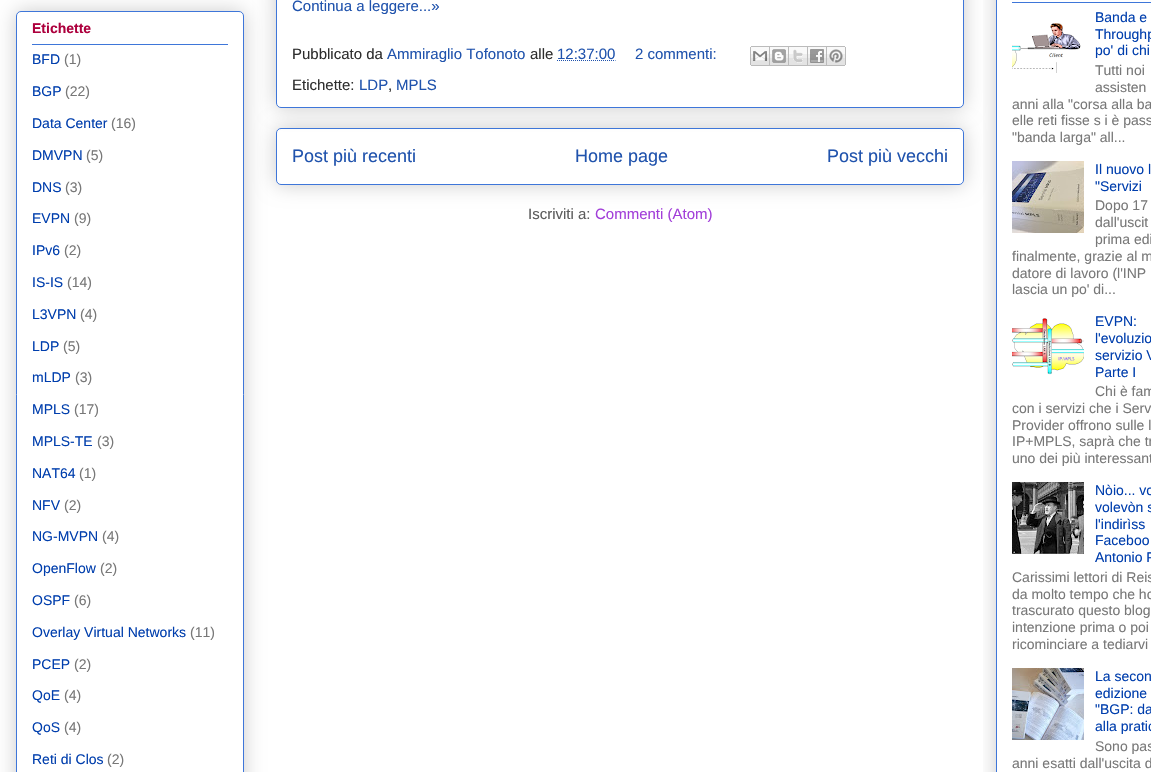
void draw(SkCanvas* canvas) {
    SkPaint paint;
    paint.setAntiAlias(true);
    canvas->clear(0xFFFFFFFF);
    paint.setColor(0x33000000);
    paint.setMaskFilter(SkMaskFilter::MakeBlur(kNormal_SkBlurStyle, 10));
    canvas->drawRoundRect(SkRect::MakeXYWH(16, 11, 228, 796), 5, 5, paint);
    paint.setMaskFilter(nullptr);
    paint.setColor(0xFFFFFFFF);
    canvas->drawRoundRect(SkRect::MakeXYWH(16.5f, 11.5f, 227, 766), 4.5f, 4.5f, paint);
    paint.setStyle(SkPaint::kStroke_Style);
    paint.setStrokeWidth(1);
    paint.setColor(0xFF3E76D9);
    canvas->drawRoundRect(SkRect::MakeXYWH(16.5f, 11.5f, 227, 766), 4.5f, 4.5f, paint);
    SkFont font1(fontMgr->matchFamilyStyle("Liberation Sans", SkFontStyle::Bold()), 14);
    font1.setSubpixel(true);
    paint.setStyle(SkPaint::kFill_Style);
    paint.setColor(0xFFAD003D);
    canvas->drawString("Etichette", 32, 33, font1, paint);
    paint.setColor(0xFF3E76D9);
    canvas->drawRect(SkRect::MakeXYWH(32, 44, 196, 1), paint);
    SkFont font2(fontMgr->matchFamilyStyle("Liberation Sans", SkFontStyle::Normal()), 14);
    font2.setSubpixel(true);
    paint.setColor(0xFF003EAD);
    canvas->drawString("BFD", 32, 64, font2, paint);
    paint.setColor(0xFF787878);
    canvas->drawString("(1)", 64, 64, font2, paint);
    paint.setColor(0xFF003EAD);
    canvas->drawString("BGP", 32, 96, font2, paint);
    paint.setColor(0xFF787878);
    canvas->drawString("(22)", 65, 96, font2, paint);
    paint.setColor(0xFF003EAD);
    canvas->drawString("Data Center", 32, 128, font2, paint);
    paint.setColor(0xFF787878);
    canvas->drawString("(16)", 111, 128, font2, paint);
    paint.setColor(0xFF003EAD);
    canvas->drawString("DMVPN", 32, 160, font2, paint);
    paint.setColor(0xFF787878);
    canvas->drawString("(5)", 86, 160, font2, paint);
    paint.setColor(0xFF003EAD);
    canvas->drawString("DNS", 32, 192, font2, paint);
    paint.setColor(0xFF787878);
    canvas->drawString("(3)", 65, 192, font2, paint);
    paint.setColor(0xFF003EAD);
    canvas->drawString("EVPN", 32, 223, font2, paint);
    paint.setColor(0xFF787878);
    canvas->drawString("(9)", 74, 223, font2, paint);
    paint.setColor(0xFF003EAD);
    canvas->drawString("IPv6", 32, 255, font2, paint);
    paint.setColor(0xFF787878);
    canvas->drawString("(2)", 64, 255, font2, paint);
    paint.setColor(0xFF003EAD);
    canvas->drawString("IS-IS", 32, 287, font2, paint);
    paint.setColor(0xFF787878);
    canvas->drawString("(14)", 67, 287, font2, paint);
    paint.setColor(0xFF003EAD);
    canvas->drawString("L3VPN", 32, 319, font2, paint);
    paint.setColor(0xFF787878);
    canvas->drawString("(4)", 80, 319, font2, paint);
    paint.setColor(0xFF003EAD);
    canvas->drawString("LDP", 32, 351, font2, paint);
    paint.setColor(0xFF787878);
    canvas->drawString("(5)", 63, 351, font2, paint);
    paint.setColor(0xFF003EAD);
    canvas->drawString("mLDP", 32, 382, font2, paint);
    paint.setColor(0xFF787878);
    canvas->drawString("(3)", 75, 382, font2, paint);
    paint.setColor(0xFF003EAD);
    canvas->drawString("MPLS", 32, 414, font2, paint);
    paint.setColor(0xFF787878);
    canvas->drawString("(17)", 74, 414, font2, paint);
    paint.setColor(0xFF003EAD);
    canvas->drawString("MPLS-TE", 32, 446, font2, paint);
    paint.setColor(0xFF787878);
    canvas->drawString("(3)", 97, 446, font2, paint);
    paint.setColor(0xFF003EAD);
    canvas->drawString("NAT64", 32, 478, font2, paint);
    paint.setColor(0xFF787878);
    canvas->drawString("(1)", 79, 478, font2, paint);
    paint.setColor(0xFF003EAD);
    canvas->drawString("NFV", 32, 510, font2, paint);
    paint.setColor(0xFF787878);
    canvas->drawString("(2)", 64, 510, font2, paint);
    paint.setColor(0xFF003EAD);
    canvas->drawString("NG-MVPN", 32, 541, font2, paint);
    paint.setColor(0xFF787878);
    canvas->drawString("(4)", 102, 541, font2, paint);
    paint.setColor(0xFF003EAD);
    canvas->drawString("OpenFlow", 32, 573, font2, paint);
    paint.setColor(0xFF787878);
    canvas->drawString("(2)", 100, 573, font2, paint);
    paint.setColor(0xFF003EAD);
    canvas->drawString("OSPF", 32, 605, font2, paint);
    paint.setColor(0xFF787878);
    canvas->drawString("(6)", 74, 605, font2, paint);
    paint.setColor(0xFF003EAD);
    canvas->drawString("Overlay Virtual Networks", 32, 637, font2, paint);
    paint.setColor(0xFF787878);
    canvas->drawString("(11)", 190, 637, font2, paint);
    paint.setColor(0xFF003EAD);
    canvas->drawString("PCEP", 32, 669, font2, paint);
    paint.setColor(0xFF787878);
    canvas->drawString("(2)", 74, 669, font2, paint);
    paint.setColor(0xFF003EAD);
    canvas->drawString("QoE", 32, 700, font2, paint);
    paint.setColor(0xFF787878);
    canvas->drawString("(4)", 64, 700, font2, paint);
    paint.setColor(0xFF003EAD);
    canvas->drawString("QoS", 32, 732, font2, paint);
    paint.setColor(0xFF787878);
    canvas->drawString("(4)", 64, 732, font2, paint);
    paint.setColor(0xFF003EAD);
    canvas->drawString("Reti di Clos", 32, 764, font2, paint);
    paint.setColor(0xFF787878);
    canvas->drawString("(2)", 107, 764, font2, paint);
    paint.setColor(0x33000000);
    paint.setMaskFilter(SkMaskFilter::MakeBlur(kNormal_SkBlurStyle, 10));
    canvas->drawRoundRect(SkRect::MakeXYWH(276, 128, 688, 57), 5, 5, paint);
    paint.setMaskFilter(nullptr);
    paint.setColor(0xFFFFFFFF);
    canvas->drawRoundRect(SkRect::MakeXYWH(276.5f, 128.5f, 687, 56), 4.5f, 4.5f, paint);
    paint.setStyle(SkPaint::kStroke_Style);
    paint.setColor(0xFF3E76D9);
    canvas->drawRoundRect(SkRect::MakeXYWH(276.5f, 128.5f, 687, 56), 4.5f, 4.5f, paint);
    paint.setStyle(SkPaint::kFill_Style);
    paint.setColor(0x33000000);
    paint.setMaskFilter(SkMaskFilter::MakeBlur(kNormal_SkBlurStyle, 10));
    canvas->drawRoundRect(SkRect::MakeXYWH(276, -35, 688, 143), 5, 5, paint);
    paint.setMaskFilter(nullptr);
    paint.setColor(0xFFFFFFFF);
    canvas->drawRoundRect(SkRect::MakeXYWH(276.5f, -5.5f, 687, 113), 4.5f, 4.5f, paint);
    paint.setStyle(SkPaint::kStroke_Style);
    paint.setColor(0xFF3E76D9);
    canvas->drawRoundRect(SkRect::MakeXYWH(276.5f, -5.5f, 687, 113), 4.5f, 4.5f, paint);
    SkFont font3(fontMgr->matchFamilyStyle("Liberation Sans", SkFontStyle::Normal()), 15);
    font3.setSubpixel(true);
    paint.setStyle(SkPaint::kFill_Style);
    paint.setColor(0xFF2053AD);
    canvas->drawString("Continua a leggere...»", 292, 11, font3, paint);
    paint.setColor(0xFF2E2E2E);
    canvas->drawString("Pubblicato da", 292, 59, font3, paint);
    paint.setColor(0xFF2053AD);
    canvas->drawString("Ammiraglio Tofonoto", 387, 59, font3, paint);
    paint.setColor(0xFF2E2E2E);
    canvas->drawString("alle", 530, 59, font3, paint);
    paint.setColor(0xFF2053AD);
    canvas->drawString("12:37:00", 557, 59, font3, paint);
    paint.setStyle(SkPaint::kStroke_Style);
    paint.setPathEffect(SkDashPathEffect::Make({{1, 1}}, 0));
    canvas->drawPath(SkPathBuilder().moveTo(557, 60.5f).lineTo(615.5f, 60.5f).detach(), paint);
    paint.setPathEffect(nullptr);
    paint.setStyle(SkPaint::kFill_Style);
    canvas->drawString("2 commenti:", 635, 59, font3, paint);
    canvas->drawImageRect(SkImages::DeferredFromEncodedData(SkData::MakeFromFileName("img1.png")), SkRect::MakeXYWH(750, 46, 20, 20), SkSamplingOptions());
    canvas->drawImageRect(SkImages::DeferredFromEncodedData(SkData::MakeFromFileName("img2.png")), SkRect::MakeXYWH(770, 46, 19, 20), SkSamplingOptions());
    canvas->drawImageRect(SkImages::DeferredFromEncodedData(SkData::MakeFromFileName("img3.png")), SkRect::MakeXYWH(789, 46, 19, 20), SkSamplingOptions());
    canvas->drawImageRect(SkImages::DeferredFromEncodedData(SkData::MakeFromFileName("img4.png")), SkRect::MakeXYWH(808, 46, 19, 20), SkSamplingOptions());
    canvas->drawImageRect(SkImages::DeferredFromEncodedData(SkData::MakeFromFileName("img5.png")), SkRect::MakeXYWH(827, 46, 19, 20), SkSamplingOptions());
    paint.setColor(0xFF2E2E2E);
    canvas->drawString("Etichette:", 292, 90, font3, paint);
    paint.setColor(0xFF2053AD);
    canvas->drawString("LDP", 359, 90, font3, paint);
    paint.setColor(0xFF2E2E2E);
    canvas->drawString(",", 388, 90, font3, paint);
    paint.setColor(0xFF2053AD);
    canvas->drawString("MPLS", 396, 90, font3, paint);
    SkFont font4(fontMgr->matchFamilyStyle("Liberation Sans", SkFontStyle::Normal()), 18);
    font4.setSubpixel(true);
    canvas->drawString("Post più recenti", 292, 162, font4, paint);
    canvas->drawString("Home page", 575, 162, font4, paint);
    canvas->drawString("Post più vecchi", 827, 162, font4, paint);
    paint.setColor(0xFF5D5D5D);
    canvas->drawString("Iscriviti a:", 528, 219, font3, paint);
    paint.setColor(0xFFA23FD9);
    canvas->drawString("Commenti (Atom)", 595, 219, font3, paint);
    canvas->save();
    canvas->clipRect(SkRect::MakeXYWH(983, 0, 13, 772));
    paint.setColor(0x33000000);
    paint.setMaskFilter(SkMaskFilter::MakeBlur(kNormal_SkBlurStyle, 10));
    canvas->drawRoundRect(SkRect::MakeXYWH(996, -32, 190, 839), 5, 5, paint);
    paint.setMaskFilter(nullptr);
    canvas->restore();
    paint.setStyle(SkPaint::kStroke_Style);
    paint.setColor(0xFF3E76D9);
    canvas->drawRect(SkRect::MakeXYWH(996.5f, -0.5f, 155, 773), paint);
    paint.setStyle(SkPaint::kFill_Style);
    canvas->drawRect(SkRect::MakeXYWH(1012, 2, 139, 1), paint);
    canvas->drawImageRect(SkImages::DeferredFromEncodedData(SkData::MakeFromFileName("img6.png")), SkRect::MakeXYWH(1012, 23, 69, 50), SkSamplingOptions());
    paint.setColor(0xFF003EAD);
    canvas->drawString("Banda e", 1095, 22, font2, paint);
    canvas->drawString("Throughp", 1095, 39, font2, paint);
    canvas->drawString("po' di chi", 1095, 55, font2, paint);
    paint.setColor(0xFF787878);
    canvas->drawString("Tutti noi", 1095, 75, font2, paint);
    canvas->drawString("assisten", 1095, 92, font2, paint);
    canvas->drawString("anni alla \"corsa alla ba", 1012, 109, font2, paint);
    canvas->drawString("elle reti fisse s i è pass", 1012, 125, font2, paint);
    canvas->drawString("\"banda larga\" all...", 1012, 142, font2, paint);
    canvas->drawImageRect(SkImages::DeferredFromEncodedData(SkData::MakeFromFileName("img7.png")), SkRect::MakeXYWH(1012, 161, 72, 72), SkSamplingOptions());
    paint.setColor(0xFF003EAD);
    canvas->drawString("Il nuovo l", 1095, 174, font2, paint);
    canvas->drawString("\"Servizi", 1095, 191, font2, paint);
    paint.setColor(0xFF787878);
    canvas->drawString("Dopo 17", 1095, 210, font2, paint);
    canvas->drawString("dall'uscit", 1095, 227, font2, paint);
    canvas->drawString("prima edi", 1095, 244, font2, paint);
    canvas->drawString("finalmente, grazie al m", 1012, 261, font2, paint);
    canvas->drawString("datore di lavoro (l'INP", 1012, 278, font2, paint);
    canvas->drawString("lascia un po' di...", 1012, 294, font2, paint);
    canvas->drawImageRect(SkImages::DeferredFromEncodedData(SkData::MakeFromFileName("img8.png")), SkRect::MakeXYWH(1012, 318, 72, 57), SkSamplingOptions());
    paint.setColor(0xFF003EAD);
    canvas->drawString("EVPN:", 1095, 326, font2, paint);
    canvas->drawString("l'evoluzio", 1095, 343, font2, paint);
    canvas->drawString("servizio V", 1095, 360, font2, paint);
    canvas->drawString("Parte I", 1095, 377, font2, paint);
    paint.setColor(0xFF787878);
    canvas->drawString("Chi è fam", 1095, 396, font2, paint);
    canvas->drawString("con i servizi che i Serv", 1012, 413, font2, paint);
    canvas->drawString("Provider offrono sulle l", 1012, 430, font2, paint);
    canvas->drawString("IP+MPLS, saprà che tr", 1012, 446, font2, paint);
    canvas->drawString("uno dei più interessant", 1012, 463, font2, paint);
    canvas->drawImageRect(SkImages::DeferredFromEncodedData(SkData::MakeFromFileName("img9.png")), SkRect::MakeXYWH(1012, 482, 72, 72), SkSamplingOptions());
    paint.setColor(0xFF003EAD);
    canvas->drawString("Nòio... vo", 1095, 495, font2, paint);
    canvas->drawString("volevòn s", 1095, 512, font2, paint);
    canvas->drawString("l'indirìss", 1095, 529, font2, paint);
    canvas->drawString("Faceboo", 1095, 545, font2, paint);
    canvas->drawString("Antonio P", 1095, 562, font2, paint);
    paint.setColor(0xFF787878);
    canvas->drawString("Carissimi lettori di Reis", 1012, 582, font2, paint);
    canvas->drawString("da molto tempo che ho", 1012, 599, font2, paint);
    canvas->drawString("trascurato questo blog", 1012, 615, font2, paint);
    canvas->drawString("intenzione prima o poi", 1012, 632, font2, paint);
    canvas->drawString("ricominciare a tediarvi", 1012, 649, font2, paint);
    canvas->drawImageRect(SkImages::DeferredFromEncodedData(SkData::MakeFromFileName("img10.png")), SkRect::MakeXYWH(1012, 668, 72, 72), SkSamplingOptions());
    paint.setColor(0xFF003EAD);
    canvas->drawString("La secon", 1095, 681, font2, paint);
    canvas->drawString("edizione", 1095, 698, font2, paint);
    canvas->drawString("\"BGP: da", 1095, 714, font2, paint);
    canvas->drawString("alla pratic", 1095, 731, font2, paint);
    paint.setColor(0xFF787878);
    canvas->drawString("Sono pas", 1095, 751, font2, paint);
    canvas->drawString("anni esatti dall'uscita d", 1012, 768, font2, paint);
}
